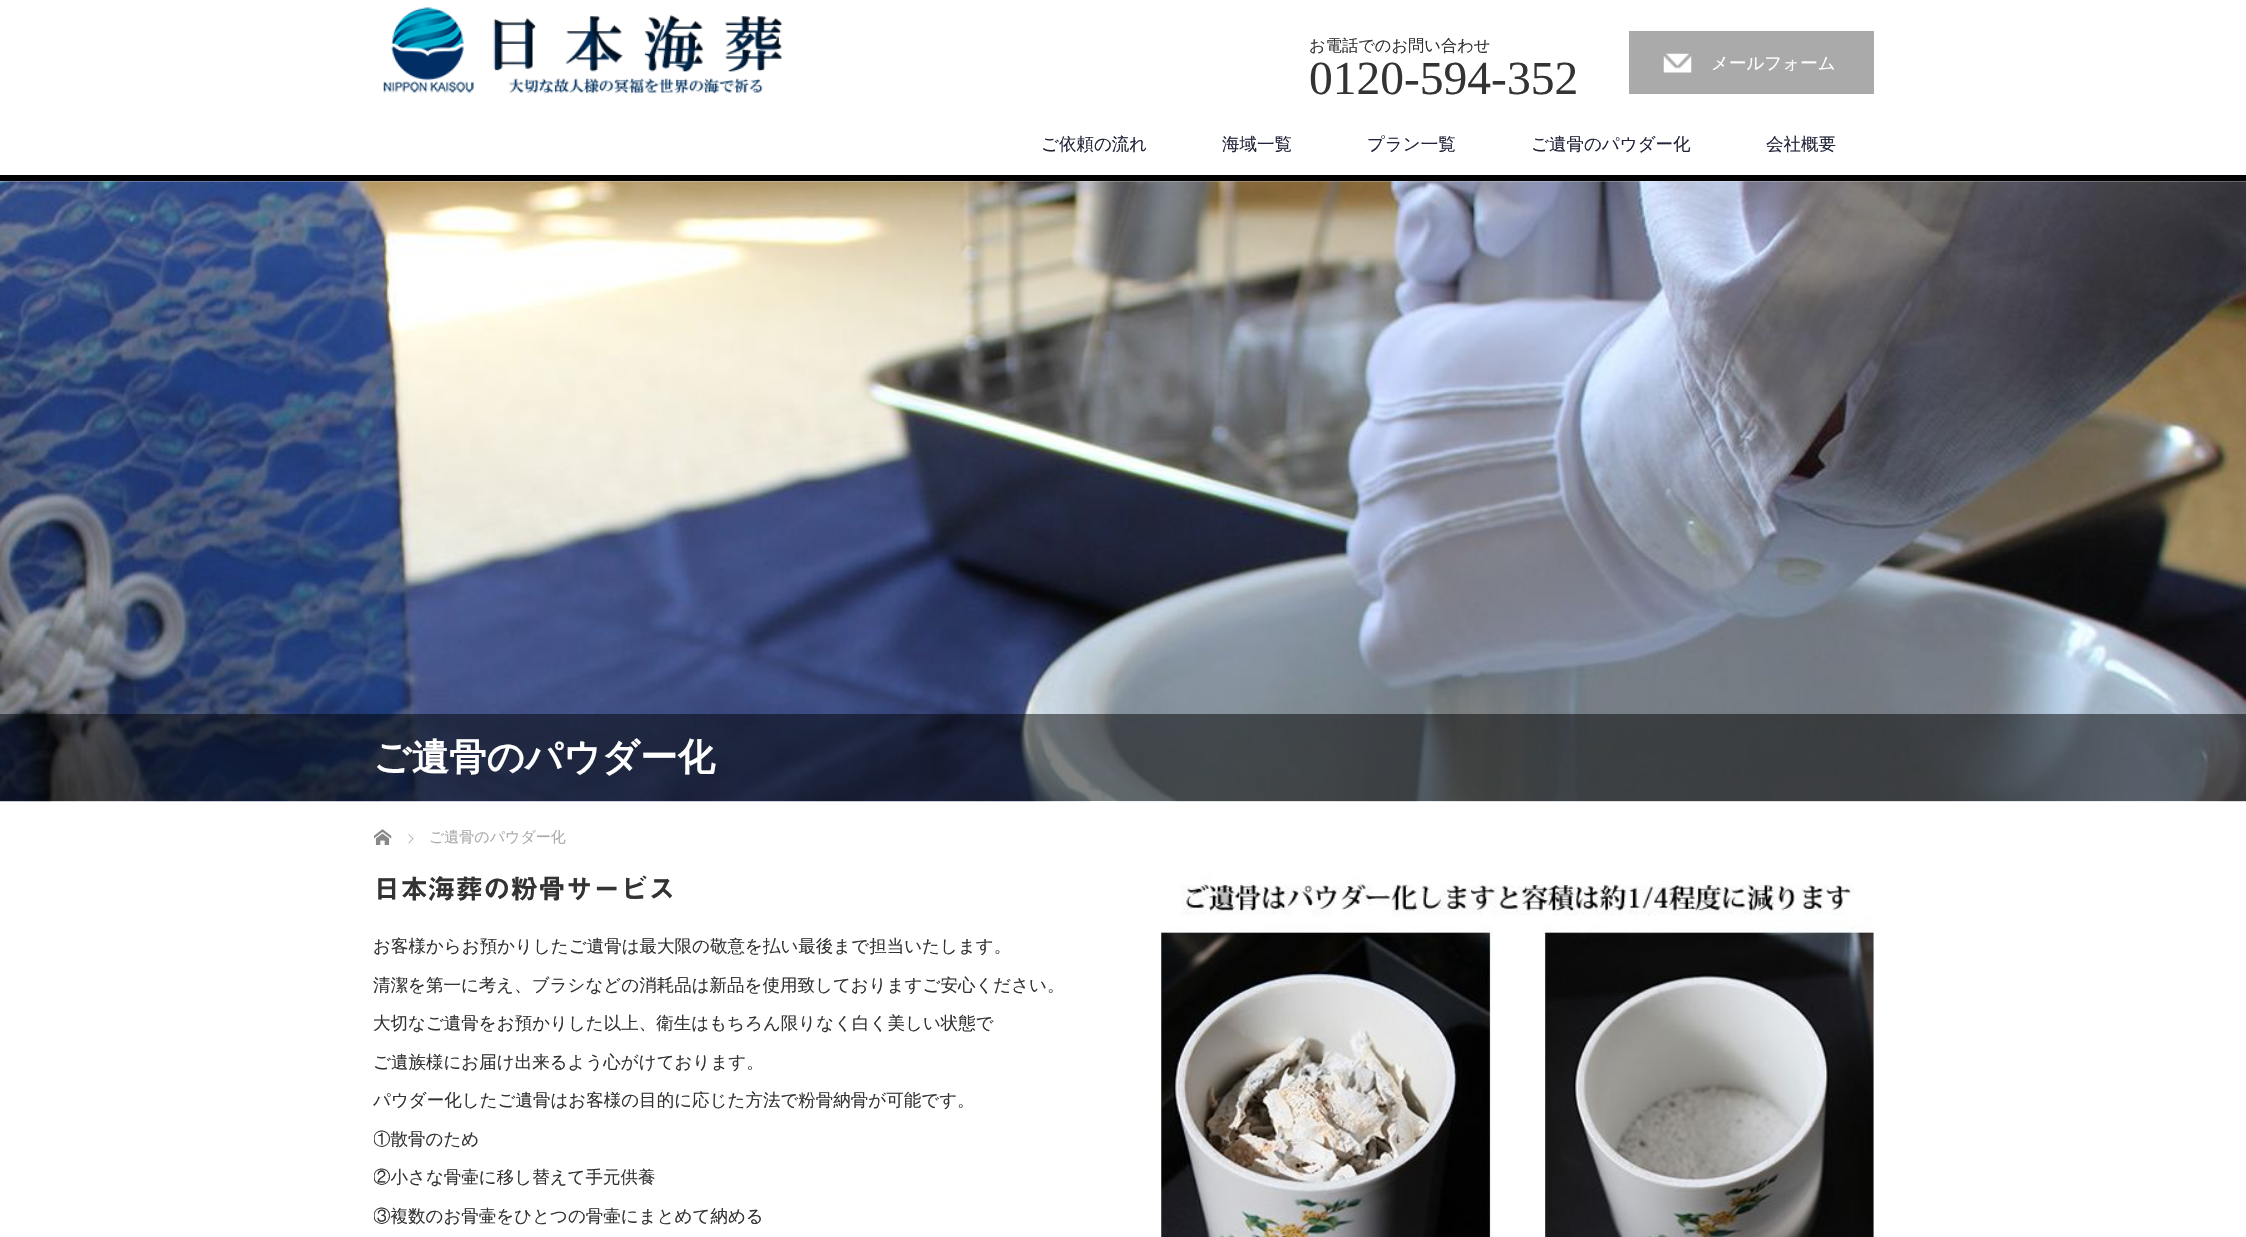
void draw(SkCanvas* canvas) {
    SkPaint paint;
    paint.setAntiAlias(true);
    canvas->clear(0xFFFFFFFF);
    paint.setColor(0xFF000000);
    canvas->drawRect(SkRect::MakeXYWH(0, 175, 2246, 6), paint);
    canvas->drawImageRect(SkImages::DeferredFromEncodedData(SkData::MakeFromFileName("img1.png")), SkRect::MakeXYWH(383, 7, 400, 87), SkSamplingOptions());
    SkFont font1(fontMgr->matchFamilyStyle("WenQuanYi Zen Hei", SkFontStyle(500, SkFontStyle::kNormal_Width, SkFontStyle::kUpright_Slant)), 16.25f);
    font1.setSubpixel(true);
    paint.setColor(0xFF333333);
    canvas->drawString("お電話でのお問い合わせ", 1309, 51, font1, paint);
    SkFont font2(fontMgr->matchFamilyStyle("Liberation Serif", SkFontStyle::Normal()), 47.5f);
    font2.setSubpixel(true);
    canvas->drawString("0120-594-352", 1309, 94, font2, paint);
    paint.setColor(0xFFAAAAAA);
    canvas->drawRect(SkRect::MakeXYWH(1629, 31, 245, 63), paint);
    canvas->drawImageRect(SkImages::DeferredFromEncodedData(SkData::MakeFromFileName("img2.png")), SkRect::MakeXYWH(1663, 53, 29, 20), SkSamplingOptions());
    SkFont font3(fontMgr->matchFamilyStyle("WenQuanYi Zen Hei", SkFontStyle(500, SkFontStyle::kNormal_Width, SkFontStyle::kUpright_Slant)), 17.5f);
    font3.setSubpixel(true);
    paint.setColor(0xFFFFFFFF);
    canvas->drawString("メールフォーム", 1711, 69, font3, paint);
    paint.setColor(0xFF222439);
    canvas->drawString("ご依頼の流れ", 1041, 150, font3, paint);
    canvas->drawString("海域一覧", 1222, 150, font3, paint);
    canvas->drawString("プラン一覧", 1367, 150, font3, paint);
    canvas->drawString("ご遺骨のパウダー化", 1531, 150, font3, paint);
    canvas->drawString("会社概要", 1766, 150, font3, paint);
    canvas->drawImageRect(SkImages::DeferredFromEncodedData(SkData::MakeFromFileName("img3.png")), SkRect::MakeXYWH(0, 181, 2246, 621), SkSamplingOptions());
    paint.setColor(0x80000000);
    canvas->drawRect(SkRect::MakeXYWH(0, 714, 2246, 87), paint);
    SkFont font4(fontMgr->matchFamilyStyle("WenQuanYi Zen Hei", SkFontStyle::Bold()), 37.5f);
    font4.setSubpixel(true);
    paint.setColor(0xFFFFFFFF);
    canvas->drawString("ご遺骨のパウダー化", 373, 770, font4, paint);
    canvas->drawImageRect(SkImages::DeferredFromEncodedData(SkData::MakeFromFileName("img4.png")), SkRect::MakeXYWH(374, 829, 18, 16), SkSamplingOptions());
    canvas->drawImageRect(SkImages::DeferredFromEncodedData(SkData::MakeFromFileName("img5.png")), SkRect::MakeXYWH(408, 833, 6, 11), SkSamplingOptions());
    SkFont font5(fontMgr->matchFamilyStyle("WenQuanYi Zen Hei", SkFontStyle(500, SkFontStyle::kNormal_Width, SkFontStyle::kUpright_Slant)), 15);
    font5.setSubpixel(true);
    paint.setColor(0xFFAAAAAA);
    canvas->drawString("ご遺骨のパウダー化", 429, 842, font5, paint);
    SkFont font6(fontMgr->matchFamilyStyle("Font", SkFontStyle(600, SkFontStyle::kNormal_Width, SkFontStyle::kUpright_Slant)), 27.5f);
    font6.setSubpixel(true);
    paint.setColor(0xFF333333);
    canvas->drawString("日本海葬の粉骨サービス", 373, 899, font6, paint);
    canvas->drawString("お客様からお預かりしたご遺骨は最大限の敬意を払い最後まで担当いたします。", 373, 952, font3, paint);
    canvas->drawString("清潔を第一に考え、ブラシなどの消耗品は新品を使用致しておりますご安心ください。", 373, 991, font3, paint);
    canvas->drawString("大切なご遺骨をお預かりした以上、衛生はもちろん限りなく白く美しい状態で", 373, 1029, font3, paint);
    canvas->drawString("ご遺族様にお届け出来るよう心がけております。", 373, 1068, font3, paint);
    canvas->drawString("パウダー化したご遺骨はお客様の目的に応じた方法で粉骨納骨が可能です。", 373, 1106, font3, paint);
    canvas->save();
    canvas->clipRect(SkRect::MakeXYWH(374, 801, 1500, 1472));
    canvas->drawString("①散骨のため", 373, 1145, font3, paint);
    canvas->drawString("②小さな骨壷に移し替えて手元供養", 373, 1183, font3, paint);
    canvas->drawString("③複数のお骨壷をひとつの骨壷にまとめて納める", 373, 1222, font3, paint);
    canvas->restore();
    canvas->drawImageRect(SkImages::DeferredFromEncodedData(SkData::MakeFromFileName("img6.png")), SkRect::MakeXYWH(1161, 875, 713, 362), SkSamplingOptions());
}
